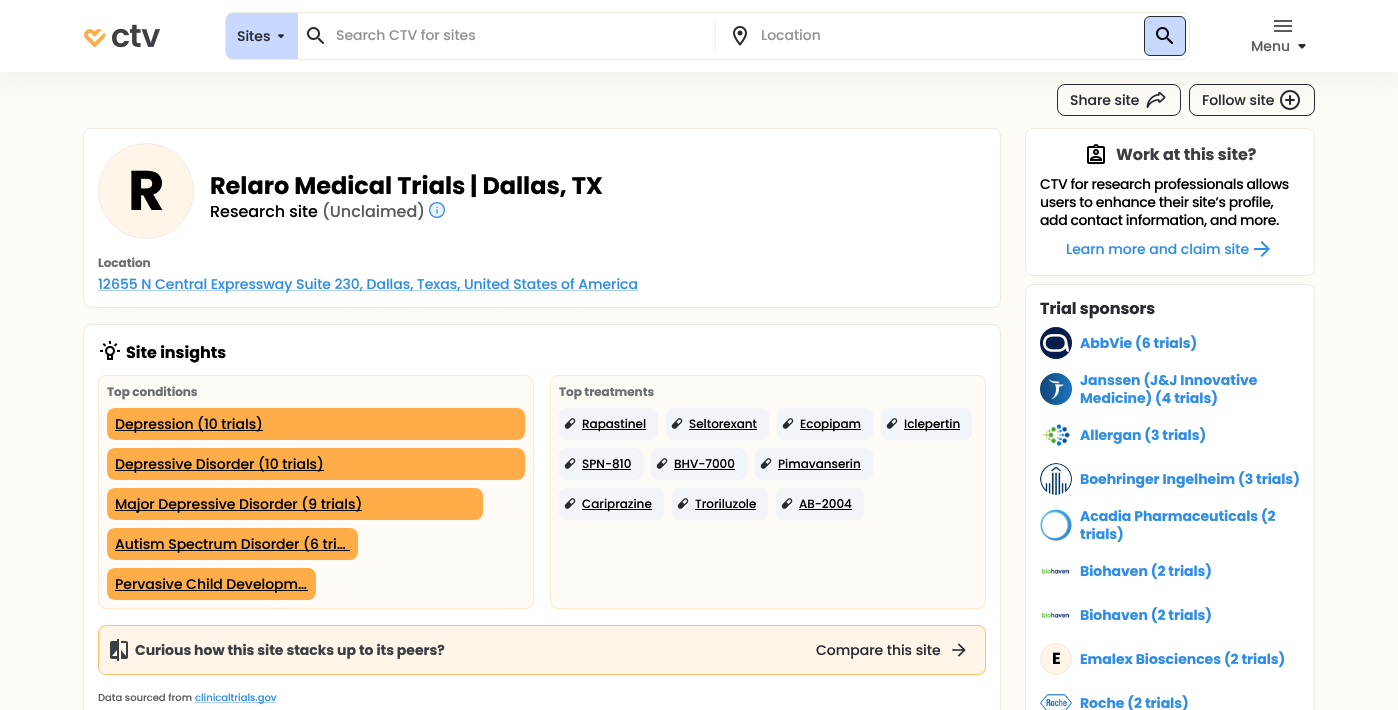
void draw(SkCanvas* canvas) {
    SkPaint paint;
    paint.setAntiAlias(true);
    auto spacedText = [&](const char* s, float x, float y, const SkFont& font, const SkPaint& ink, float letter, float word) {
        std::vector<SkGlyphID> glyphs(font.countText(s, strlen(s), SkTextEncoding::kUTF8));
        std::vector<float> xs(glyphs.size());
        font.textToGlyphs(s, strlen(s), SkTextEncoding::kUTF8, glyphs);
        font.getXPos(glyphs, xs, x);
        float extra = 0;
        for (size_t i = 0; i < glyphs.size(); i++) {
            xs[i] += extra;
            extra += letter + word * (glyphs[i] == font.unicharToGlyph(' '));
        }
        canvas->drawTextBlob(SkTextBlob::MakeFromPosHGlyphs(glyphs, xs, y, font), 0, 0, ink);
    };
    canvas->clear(0xFFFEFAF5);
    paint.setStyle(SkPaint::kStroke_Style);
    paint.setStrokeWidth(1);
    paint.setColor(0xFF272A30);
    canvas->drawRoundRect(SkRect::MakeXYWH(1057.5f, 84.5f, 123, 31), 7.5f, 7.5f, paint);
    canvas->drawImageRect(SkImages::DeferredFromEncodedData(SkData::MakeFromFileName("img8.png")), SkRect::MakeXYWH(1146, 92, 20, 17), SkSamplingOptions());
    canvas->drawRoundRect(SkRect::MakeXYWH(1189.5f, 84.5f, 125, 31), 7.5f, 7.5f, paint);
    canvas->drawImageRect(SkImages::DeferredFromEncodedData(SkData::MakeFromFileName("img9.png")), SkRect::MakeXYWH(1280, 90, 20, 20), SkSamplingOptions());
    paint.setStyle(SkPaint::kFill_Style);
    paint.setColor(0x0F000000);
    paint.setMaskFilter(SkMaskFilter::MakeBlur(kNormal_SkBlurStyle, 16));
    canvas->drawRect(SkRect::MakeXYWH(0, 0, 1398, 72), paint);
    paint.setMaskFilter(nullptr);
    paint.setColor(0xFFFFFFFF);
    canvas->drawRect(SkRect::MakeXYWH(0, 0, 1398, 72), paint);
    canvas->drawImageRect(SkImages::DeferredFromEncodedData(SkData::MakeFromFileName("img1.png")), SkRect::MakeXYWH(84, 24, 76, 24), SkSamplingOptions());
    paint.setStyle(SkPaint::kStroke_Style);
    paint.setColor(0xFFF1ECE3);
    canvas->drawRoundRect(SkRect::MakeXYWH(225.5f, 12.5f, 964, 47), 7.5f, 7.5f, paint);
    paint.setStyle(SkPaint::kFill_Style);
    paint.setColor(0xFFC9D8FF);
    canvas->drawPath(SkPathBuilder().moveTo(233, 13).lineTo(298, 13).lineTo(298, 59).lineTo(233, 59).cubicTo(229, 59, 226, 56, 226, 52).lineTo(226, 20).cubicTo(226, 16, 229, 13, 233, 13).close().detach(), paint);
    SkFont font1(fontMgr->matchFamilyStyle("Poppins", SkFontStyle(500, SkFontStyle::kNormal_Width, SkFontStyle::kUpright_Slant)), 14);
    font1.setSubpixel(true);
    paint.setColor(0xFF272A30);
    spacedText("Sites", 237, 41, font1, paint, -0.03f, 0);
    canvas->drawImageRect(SkImages::DeferredFromEncodedData(SkData::MakeFromFileName("img2.png")), SkRect::MakeXYWH(278, 34, 6, 5), SkSamplingOptions());
    canvas->drawImageRect(SkImages::DeferredFromEncodedData(SkData::MakeFromFileName("img3.png")), SkRect::MakeXYWH(307, 27, 17, 17), SkSamplingOptions());
    paint.setColor(0xFF949494);
    spacedText("Search CTV for sites", 336, 40, font1, paint, -0.03f, 0);
    paint.setColor(0xFFF1F4F9);
    canvas->drawRect(SkRect::MakeXYWH(714, 21, 2, 30), paint);
    canvas->drawImageRect(SkImages::DeferredFromEncodedData(SkData::MakeFromFileName("img4.png")), SkRect::MakeXYWH(733, 26, 14, 20), SkSamplingOptions());
    paint.setColor(0xFF949494);
    spacedText("Location", 761, 40, font1, paint, -0.03f, 0);
    paint.setColor(0xFFC9D8FF);
    canvas->drawRoundRect(SkRect::MakeXYWH(1144.5f, 16.5f, 41, 39), 5.5f, 5.5f, paint);
    paint.setStyle(SkPaint::kStroke_Style);
    paint.setColor(0xFF272A30);
    canvas->drawRoundRect(SkRect::MakeXYWH(1144.5f, 16.5f, 41, 39), 5.5f, 5.5f, paint);
    canvas->drawImageRect(SkImages::DeferredFromEncodedData(SkData::MakeFromFileName("img5.png")), SkRect::MakeXYWH(1156, 27, 17, 17), SkSamplingOptions());
    canvas->drawImageRect(SkImages::DeferredFromEncodedData(SkData::MakeFromFileName("img6.png")), SkRect::MakeXYWH(1274, 20, 18, 12), SkSamplingOptions());
    paint.setStyle(SkPaint::kFill_Style);
    paint.setColor(0xFF575A60);
    spacedText("Menu", 1251, 51, font1, paint, -0.03f, 0);
    canvas->drawImageRect(SkImages::DeferredFromEncodedData(SkData::MakeFromFileName("img7.png")), SkRect::MakeXYWH(1298, 44, 8, 5), SkSamplingOptions());
    paint.setColor(0xFF272A30);
    spacedText("Share site", 1070, 105, font1, paint, -0.03f, 0);
    spacedText("Follow site", 1202, 105, font1, paint, -0.03f, 0);
    paint.setColor(0xFFFFFFFF);
    canvas->drawRoundRect(SkRect::MakeXYWH(83.5f, 128.5f, 917, 179), 7.5f, 7.5f, paint);
    paint.setStyle(SkPaint::kStroke_Style);
    paint.setColor(0xFFF1ECE3);
    canvas->drawRoundRect(SkRect::MakeXYWH(83.5f, 128.5f, 917, 179), 7.5f, 7.5f, paint);
    paint.setStyle(SkPaint::kFill_Style);
    paint.setColor(0xFFFFF5E9);
    canvas->drawCircle(146, 191, 47.5f, paint);
    paint.setStyle(SkPaint::kStroke_Style);
    paint.setColor(0xFFF1ECE3);
    canvas->drawCircle(146, 191, 47.5f, paint);
    SkFont font2(fontMgr->matchFamilyStyle("Poppins", SkFontStyle::Bold()), 56);
    font2.setSubpixel(true);
    paint.setStyle(SkPaint::kFill_Style);
    paint.setColor(0xFF000000);
    spacedText("R", 128, 210, font2, paint, -0.03f, 0);
    SkFont font3(fontMgr->matchFamilyStyle("Poppins", SkFontStyle::Bold()), 24);
    font3.setSubpixel(true);
    spacedText("Relaro Medical Trials | Dallas, TX", 210, 194, font3, paint, -0.03f, 0);
    SkFont font4(fontMgr->matchFamilyStyle("Poppins", SkFontStyle(500, SkFontStyle::kNormal_Width, SkFontStyle::kUpright_Slant)), 16);
    font4.setSubpixel(true);
    spacedText("Research site", 210, 217, font4, paint, -0.03f, 0);
    paint.setColor(0xFF575A60);
    spacedText("(Unclaimed)", 322, 217, font4, paint, -0.03f, 0);
    paint.setColor(0xFF2F8DE5);
    canvas->drawCircle(437, 210, 8, paint);
    canvas->drawImageRect(SkImages::DeferredFromEncodedData(SkData::MakeFromFileName("img10.png")), SkRect::MakeXYWH(430, 203, 14, 14), SkSamplingOptions());
    SkFont font5(fontMgr->matchFamilyStyle("Poppins", SkFontStyle::Bold()), 12);
    font5.setSubpixel(true);
    paint.setColor(0xFF6B6E73);
    spacedText("Location", 98, 267, font5, paint, -0.03f, 0);
    paint.setColor(0xFFACD1F5);
    canvas->drawRect(SkRect::MakeXYWH(98, 290, 540, 1), paint);
    paint.setColor(0xFF2F8DE5);
    spacedText("12655 N Central Expressway Suite 230, Dallas, Texas, United States of America", 98, 289, font1, paint, -0.03f, 0);
    paint.setColor(0xFFFFFFFF);
    canvas->drawRoundRect(SkRect::MakeXYWH(83.5f, 324.5f, 917, 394), 7.5f, 7.5f, paint);
    paint.setStyle(SkPaint::kStroke_Style);
    paint.setColor(0xFFF1ECE3);
    canvas->drawRoundRect(SkRect::MakeXYWH(83.5f, 324.5f, 917, 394), 7.5f, 7.5f, paint);
    canvas->drawImageRect(SkImages::DeferredFromEncodedData(SkData::MakeFromFileName("img11.png")), SkRect::MakeXYWH(100, 340, 20, 20), SkSamplingOptions());
    SkFont font6(fontMgr->matchFamilyStyle("Poppins", SkFontStyle::Bold()), 16);
    font6.setSubpixel(true);
    paint.setStyle(SkPaint::kFill_Style);
    paint.setColor(0xFF000000);
    spacedText("Site insights", 126, 358, font6, paint, -0.03f, 0);
    paint.setColor(0xFFFEFAF5);
    canvas->drawRoundRect(SkRect::MakeXYWH(98.5f, 375.5f, 435, 233), 7.5f, 7.5f, paint);
    paint.setStyle(SkPaint::kStroke_Style);
    paint.setColor(0xFFFFE8CC);
    canvas->drawRoundRect(SkRect::MakeXYWH(98.5f, 375.5f, 435, 233), 7.5f, 7.5f, paint);
    paint.setStyle(SkPaint::kFill_Style);
    paint.setColor(0xFF6B6E73);
    spacedText("Top conditions", 107, 396, font5, paint, -0.03f, 0);
    paint.setColor(0xFFFFAD49);
    canvas->drawRoundRect(SkRect::MakeXYWH(107, 408, 418, 32), 8, 8, paint);
    paint.setColor(0xFF000000);
    canvas->drawRect(SkRect::MakeXYWH(115, 430, 148, 1), paint);
    spacedText("Depression (10 trials)", 115, 429, font1, paint, -0.03f, 0);
    paint.setColor(0xFFFFAD49);
    canvas->drawRoundRect(SkRect::MakeXYWH(107, 448, 418, 32), 8, 8, paint);
    paint.setColor(0xFF000000);
    canvas->drawRect(SkRect::MakeXYWH(115, 470, 209, 1), paint);
    spacedText("Depressive Disorder (10 trials)", 115, 469, font1, paint, -0.03f, 0);
    paint.setColor(0xFFFFAD49);
    canvas->drawRoundRect(SkRect::MakeXYWH(107, 488, 376, 32), 8, 8, paint);
    paint.setColor(0xFF000000);
    canvas->drawRect(SkRect::MakeXYWH(115, 510, 247, 1), paint);
    spacedText("Major Depressive Disorder (9 trials)", 115, 509, font1, paint, -0.03f, 0);
    paint.setColor(0xFFFFAD49);
    canvas->drawRoundRect(SkRect::MakeXYWH(107, 528, 251, 32), 8, 8, paint);
    paint.setColor(0xFF000000);
    canvas->drawRect(SkRect::MakeXYWH(115, 550, 235, 1), paint);
    spacedText("Autism Spectrum Disorder (6 tri…", 115, 549, font1, paint, -0.03f, 0);
    paint.setColor(0xFFFFAD49);
    canvas->drawRoundRect(SkRect::MakeXYWH(107, 568, 209, 32), 8, 8, paint);
    paint.setColor(0xFF000000);
    canvas->drawRect(SkRect::MakeXYWH(115, 590, 193, 1), paint);
    spacedText("Pervasive Child Developm…", 115, 589, font1, paint, -0.03f, 0);
    paint.setColor(0xFFFEFAF5);
    canvas->drawRoundRect(SkRect::MakeXYWH(550.5f, 375.5f, 435, 233), 7.5f, 7.5f, paint);
    paint.setStyle(SkPaint::kStroke_Style);
    paint.setColor(0xFFFFE8CC);
    canvas->drawRoundRect(SkRect::MakeXYWH(550.5f, 375.5f, 435, 233), 7.5f, 7.5f, paint);
    paint.setStyle(SkPaint::kFill_Style);
    paint.setColor(0xFF6B6E73);
    spacedText("Top treatments", 559, 396, font5, paint, -0.03f, 0);
    paint.setColor(0xFFF1F4F9);
    canvas->drawRoundRect(SkRect::MakeXYWH(559, 408, 99, 32), 8, 8, paint);
    canvas->drawImageRect(SkImages::DeferredFromEncodedData(SkData::MakeFromFileName("img12.png")), SkRect::MakeXYWH(564, 418, 12, 11), SkSamplingOptions());
    paint.setColor(0xFF000000);
    canvas->drawRect(SkRect::MakeXYWH(582, 429, 64, 1), paint);
    SkFont font7(fontMgr->matchFamilyStyle("Poppins", SkFontStyle(500, SkFontStyle::kNormal_Width, SkFontStyle::kUpright_Slant)), 12);
    font7.setSubpixel(true);
    spacedText("Rapastinel", 582, 428, font7, paint, -0.03f, 0);
    paint.setColor(0xFFF1F4F9);
    canvas->drawRoundRect(SkRect::MakeXYWH(666, 408, 103, 32), 8, 8, paint);
    canvas->drawImageRect(SkImages::DeferredFromEncodedData(SkData::MakeFromFileName("img12.png")), SkRect::MakeXYWH(671, 418, 12, 11), SkSamplingOptions());
    paint.setColor(0xFF000000);
    spacedText("Seltorexant", 689, 428, font7, paint, -0.03f, 0);
    canvas->drawRect(SkRect::MakeXYWH(689, 429, 68, 1), paint);
    paint.setColor(0xFFF1F4F9);
    canvas->drawRoundRect(SkRect::MakeXYWH(777, 408, 96, 32), 8, 8, paint);
    canvas->drawImageRect(SkImages::DeferredFromEncodedData(SkData::MakeFromFileName("img12.png")), SkRect::MakeXYWH(782, 418, 12, 11), SkSamplingOptions());
    paint.setColor(0xFF000000);
    canvas->drawRect(SkRect::MakeXYWH(800, 429, 61, 1), paint);
    spacedText("Ecopipam", 800, 428, font7, paint, -0.03f, 0);
    paint.setColor(0xFFF1F4F9);
    canvas->drawRoundRect(SkRect::MakeXYWH(881, 408, 91, 32), 8, 8, paint);
    canvas->drawImageRect(SkImages::DeferredFromEncodedData(SkData::MakeFromFileName("img12.png")), SkRect::MakeXYWH(886, 418, 12, 11), SkSamplingOptions());
    paint.setColor(0xFF000000);
    canvas->drawRect(SkRect::MakeXYWH(904, 429, 56, 1), paint);
    spacedText("Iclepertin", 904, 428, font7, paint, -0.03f, 0);
    paint.setColor(0xFFF1F4F9);
    canvas->drawRoundRect(SkRect::MakeXYWH(559, 448, 84, 32), 8, 8, paint);
    canvas->drawImageRect(SkImages::DeferredFromEncodedData(SkData::MakeFromFileName("img12.png")), SkRect::MakeXYWH(564, 458, 12, 11), SkSamplingOptions());
    paint.setColor(0xFF000000);
    spacedText("SPN-810", 582, 468, font7, paint, -0.03f, 0);
    canvas->drawRect(SkRect::MakeXYWH(582, 469, 49, 1), paint);
    paint.setColor(0xFFF1F4F9);
    canvas->drawRoundRect(SkRect::MakeXYWH(651, 448, 96, 32), 8, 8, paint);
    canvas->drawImageRect(SkImages::DeferredFromEncodedData(SkData::MakeFromFileName("img12.png")), SkRect::MakeXYWH(656, 458, 12, 11), SkSamplingOptions());
    paint.setColor(0xFF000000);
    spacedText("BHV-7000", 674, 468, font7, paint, -0.03f, 0);
    canvas->drawRect(SkRect::MakeXYWH(674, 469, 61, 1), paint);
    paint.setColor(0xFFF1F4F9);
    canvas->drawRoundRect(SkRect::MakeXYWH(755, 448, 118, 32), 8, 8, paint);
    canvas->drawImageRect(SkImages::DeferredFromEncodedData(SkData::MakeFromFileName("img12.png")), SkRect::MakeXYWH(760, 458, 12, 11), SkSamplingOptions());
    paint.setColor(0xFF000000);
    spacedText("Pimavanserin", 778, 468, font7, paint, -0.03f, 0);
    canvas->drawRect(SkRect::MakeXYWH(778, 469, 83, 1), paint);
    paint.setColor(0xFFF1F4F9);
    canvas->drawRoundRect(SkRect::MakeXYWH(559, 488, 105, 32), 8, 8, paint);
    canvas->drawImageRect(SkImages::DeferredFromEncodedData(SkData::MakeFromFileName("img12.png")), SkRect::MakeXYWH(564, 498, 12, 11), SkSamplingOptions());
    paint.setColor(0xFF000000);
    canvas->drawRect(SkRect::MakeXYWH(582, 509, 70, 1), paint);
    spacedText("Cariprazine", 582, 508, font7, paint, -0.03f, 0);
    paint.setColor(0xFFF1F4F9);
    canvas->drawRoundRect(SkRect::MakeXYWH(672, 488, 96, 32), 8, 8, paint);
    canvas->drawImageRect(SkImages::DeferredFromEncodedData(SkData::MakeFromFileName("img12.png")), SkRect::MakeXYWH(677, 498, 12, 11), SkSamplingOptions());
    paint.setColor(0xFF000000);
    spacedText("Troriluzole", 695, 508, font7, paint, -0.03f, 0);
    canvas->drawRect(SkRect::MakeXYWH(695, 509, 61, 1), paint);
    paint.setColor(0xFFF1F4F9);
    canvas->drawRoundRect(SkRect::MakeXYWH(776, 488, 88, 32), 8, 8, paint);
    canvas->drawImageRect(SkImages::DeferredFromEncodedData(SkData::MakeFromFileName("img12.png")), SkRect::MakeXYWH(781, 498, 12, 11), SkSamplingOptions());
    paint.setColor(0xFF000000);
    spacedText("AB-2004", 799, 508, font7, paint, -0.03f, 0);
    canvas->drawRect(SkRect::MakeXYWH(799, 509, 53, 1), paint);
    paint.setColor(0xFFFFF5E9);
    canvas->drawRoundRect(SkRect::MakeXYWH(98.5f, 625.5f, 887, 49), 7.5f, 7.5f, paint);
    paint.setStyle(SkPaint::kStroke_Style);
    paint.setColor(0xFFFFBE6E);
    canvas->drawRoundRect(SkRect::MakeXYWH(98.5f, 625.5f, 887, 49), 7.5f, 7.5f, paint);
    canvas->drawImageRect(SkImages::DeferredFromEncodedData(SkData::MakeFromFileName("img13.png")), SkRect::MakeXYWH(110, 639, 18, 22), SkSamplingOptions());
    SkFont font8(fontMgr->matchFamilyStyle("Poppins", SkFontStyle::Bold()), 14);
    font8.setSubpixel(true);
    paint.setStyle(SkPaint::kFill_Style);
    paint.setColor(0xFF3B3E43);
    spacedText("Curious how this site stacks up to its peers?", 135, 655, font8, paint, -0.03f, 0);
    paint.setColor(0xFF272A30);
    spacedText("Compare this site", 816, 655, font1, paint, -0.03f, 0);
    canvas->drawImageRect(SkImages::DeferredFromEncodedData(SkData::MakeFromFileName("img14.png")), SkRect::MakeXYWH(952, 643, 14, 14), SkSamplingOptions());
    SkFont font9(fontMgr->matchFamilyStyle("Poppins", SkFontStyle(500, SkFontStyle::kNormal_Width, SkFontStyle::kUpright_Slant)), 10);
    font9.setSubpixel(true);
    paint.setColor(0xFF575A60);
    spacedText("Data sourced from", 98, 701, font9, paint, -0.03f, 0);
    paint.setColor(0xFFACD1F5);
    canvas->drawRect(SkRect::MakeXYWH(195, 702, 81, 1), paint);
    paint.setColor(0xFF2F8DE5);
    spacedText("clinicaltrials.gov", 195, 701, font9, paint, -0.03f, 0);
    paint.setColor(0xFFFFFFFF);
    canvas->drawRoundRect(SkRect::MakeXYWH(1025.5f, 128.5f, 289, 147), 7.5f, 7.5f, paint);
    paint.setStyle(SkPaint::kStroke_Style);
    paint.setColor(0xFFF1ECE3);
    canvas->drawRoundRect(SkRect::MakeXYWH(1025.5f, 128.5f, 289, 147), 7.5f, 7.5f, paint);
    canvas->drawImageRect(SkImages::DeferredFromEncodedData(SkData::MakeFromFileName("img15.png")), SkRect::MakeXYWH(1087, 144, 18, 20), SkSamplingOptions());
    paint.setStyle(SkPaint::kFill_Style);
    paint.setColor(0xFF3B3E43);
    spacedText("Work at this site?", 1116, 160, font6, paint, -0.03f, 0);
    paint.setColor(0xFF000000);
    spacedText("CTV for research professionals allows", 1040, 189, font1, paint, -0.4f, 0);
    spacedText("users to enhance their site’s profile,", 1040, 207, font1, paint, -0.4f, 0);
    spacedText("add contact information, and more.", 1040, 225, font1, paint, -0.4f, 0);
    paint.setColor(0xFF2F8DE5);
    spacedText("Learn more and claim site", 1066, 254, font1, paint, -0.03f, 0);
    canvas->drawImageRect(SkImages::DeferredFromEncodedData(SkData::MakeFromFileName("img16.png")), SkRect::MakeXYWH(1254, 241, 16, 16), SkSamplingOptions());
    paint.setColor(0xFFFFFFFF);
    canvas->drawRoundRect(SkRect::MakeXYWH(1025.5f, 284.5f, 289, 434), 7.5f, 7.5f, paint);
    paint.setStyle(SkPaint::kStroke_Style);
    paint.setColor(0xFFF1ECE3);
    canvas->drawRoundRect(SkRect::MakeXYWH(1025.5f, 284.5f, 289, 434), 7.5f, 7.5f, paint);
    paint.setStyle(SkPaint::kFill_Style);
    paint.setColor(0xFF272A30);
    spacedText("Trial sponsors", 1040, 314, font6, paint, -0.03f, 0);
    canvas->drawImageRect(SkImages::DeferredFromEncodedData(SkData::MakeFromFileName("img17.png")), SkRect::MakeXYWH(1040, 327, 32, 32), SkSamplingOptions());
    paint.setColor(0xFF2F8DE5);
    spacedText("AbbVie (6 trials)", 1080, 348, font8, paint, -0.03f, 0);
    canvas->drawImageRect(SkImages::DeferredFromEncodedData(SkData::MakeFromFileName("img18.png")), SkRect::MakeXYWH(1040, 373, 32, 32), SkSamplingOptions());
    spacedText("Janssen (J&J Innovative", 1080, 385, font8, paint, -0.03f, 0);
    spacedText("Medicine) (4 trials)", 1080, 403, font8, paint, -0.03f, 0);
    canvas->drawImageRect(SkImages::DeferredFromEncodedData(SkData::MakeFromFileName("img19.png")), SkRect::MakeXYWH(1042, 424, 28, 22), SkSamplingOptions());
    spacedText("Allergan (3 trials)", 1080, 440, font8, paint, -0.03f, 0);
    canvas->drawImageRect(SkImages::DeferredFromEncodedData(SkData::MakeFromFileName("img20.png")), SkRect::MakeXYWH(1040, 463, 32, 32), SkSamplingOptions());
    spacedText("Boehringer Ingelheim (3 trials)", 1080, 484, font8, paint, -0.03f, 0);
    canvas->drawImageRect(SkImages::DeferredFromEncodedData(SkData::MakeFromFileName("img21.png")), SkRect::MakeXYWH(1040, 509, 32, 32), SkSamplingOptions());
    spacedText("Acadia Pharmaceuticals (2", 1080, 521, font8, paint, -0.03f, 0);
    spacedText("trials)", 1080, 539, font8, paint, -0.03f, 0);
    canvas->drawImageRect(SkImages::DeferredFromEncodedData(SkData::MakeFromFileName("img22.png")), SkRect::MakeXYWH(1042, 568, 28, 6), SkSamplingOptions());
    spacedText("Biohaven (2 trials)", 1080, 576, font8, paint, -0.03f, 0);
    canvas->drawImageRect(SkImages::DeferredFromEncodedData(SkData::MakeFromFileName("img22.png")), SkRect::MakeXYWH(1042, 612, 28, 6), SkSamplingOptions());
    spacedText("Biohaven (2 trials)", 1080, 620, font8, paint, -0.03f, 0);
    paint.setColor(0xFFFFF5E9);
    canvas->drawCircle(1056, 659, 15.5f, paint);
    paint.setStyle(SkPaint::kStroke_Style);
    paint.setColor(0xFFF1ECE3);
    canvas->drawCircle(1056, 659, 15.5f, paint);
    paint.setStyle(SkPaint::kFill_Style);
    paint.setColor(0xFF000000);
    spacedText("E", 1052, 664, font6, paint, -0.03f, 0);
    paint.setColor(0xFF2F8DE5);
    spacedText("Emalex Biosciences (2 trials)", 1080, 664, font8, paint, -0.03f, 0);
    canvas->drawImageRect(SkImages::DeferredFromEncodedData(SkData::MakeFromFileName("img23.png")), SkRect::MakeXYWH(1040, 694, 32, 16), SkSamplingOptions());
    spacedText("Roche (2 trials)", 1080, 708, font8, paint, -0.03f, 0);
}
